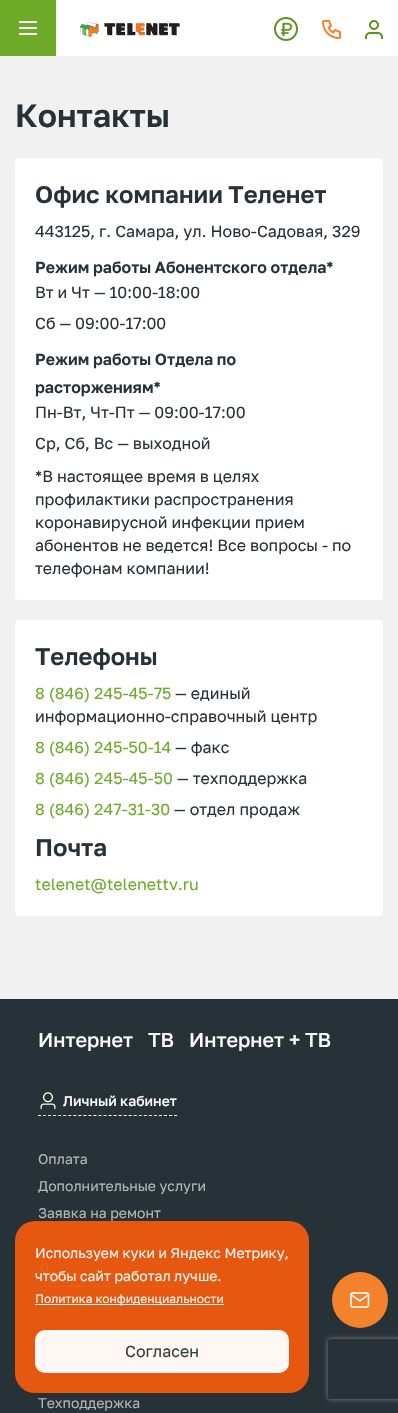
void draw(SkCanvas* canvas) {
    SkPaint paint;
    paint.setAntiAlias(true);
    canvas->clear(0xFFF1F1F1);
    paint.setColor(0xFFFFFFFF);
    canvas->drawRect(SkRect::MakeXYWH(56, 0, 342, 56), paint);
    paint.setColor(0xFF6DAB29);
    canvas->drawRect(SkRect::MakeXYWH(0, 0, 56, 56), paint);
    paint.setColor(0xFFFFFFFF);
    canvas->drawRect(SkRect::MakeXYWH(19, 21, 18, 2), paint);
    canvas->drawRect(SkRect::MakeXYWH(19, 27, 18, 2), paint);
    canvas->drawRect(SkRect::MakeXYWH(19, 33, 18, 2), paint);
    canvas->drawImageRect(SkImages::DeferredFromEncodedData(SkData::MakeFromFileName("img1.png")), SkRect::MakeXYWH(80, 22, 100, 15), SkSamplingOptions());
    canvas->drawImageRect(SkImages::DeferredFromEncodedData(SkData::MakeFromFileName("img2.png")), SkRect::MakeXYWH(274, 17, 24, 24), SkSamplingOptions());
    canvas->drawImageRect(SkImages::DeferredFromEncodedData(SkData::MakeFromFileName("img3.png")), SkRect::MakeXYWH(322, 20, 19, 19), SkSamplingOptions());
    canvas->drawImageRect(SkImages::DeferredFromEncodedData(SkData::MakeFromFileName("img4.png")), SkRect::MakeXYWH(365, 20, 18, 19), SkSamplingOptions());
    SkFont font1(fontMgr->matchFamilyStyle("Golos", SkFontStyle(600, SkFontStyle::kNormal_Width, SkFontStyle::kUpright_Slant)), 32);
    font1.setSubpixel(true);
    paint.setColor(0xFF263238);
    canvas->drawString("Контакты", 15, 127, font1, paint);
    paint.setColor(0xFFFFFFFF);
    canvas->drawRoundRect(SkRect::MakeXYWH(15, 158, 368, 442), 4, 4, paint);
    SkFont font2(fontMgr->matchFamilyStyle("Golos", SkFontStyle(600, SkFontStyle::kNormal_Width, SkFontStyle::kUpright_Slant)), 24);
    font2.setSubpixel(true);
    paint.setColor(0xFF263238);
    canvas->drawString("Офис компании Теленет", 35, 203, font2, paint);
    SkFont font3(fontMgr->matchFamilyStyle("Golos", SkFontStyle::Normal()), 16);
    font3.setSubpixel(true);
    canvas->drawString("443125, г. Самара, ул. Ново-Садовая, 329", 35, 237, font3, paint);
    SkFont font4(fontMgr->matchFamilyStyle("Golos", SkFontStyle(600, SkFontStyle::kNormal_Width, SkFontStyle::kUpright_Slant)), 16);
    font4.setSubpixel(true);
    canvas->drawString("Режим работы Абонентского отдела*", 35, 273, font4, paint);
    canvas->drawString("Вт и Чт — 10:00-18:00", 35, 298, font3, paint);
    canvas->drawString("Сб — 09:00-17:00", 35, 329, font3, paint);
    canvas->drawString("Режим работы Отдела по", 35, 365, font4, paint);
    canvas->drawString("расторжениям*", 35, 393, font4, paint);
    canvas->drawString("Пн-Вт, Чт-Пт — 09:00-17:00", 35, 418, font3, paint);
    canvas->drawString("Ср, Сб, Вс — выходной", 35, 449, font3, paint);
    canvas->drawString("*В настоящее время в целях", 35, 482, font3, paint);
    canvas->drawString("профилактики распространения", 35, 505, font3, paint);
    canvas->drawString("коронавирусной инфекции прием", 35, 528, font3, paint);
    canvas->drawString("абонентов не ведется! Все вопросы - по", 35, 551, font3, paint);
    canvas->drawString("телефонам компании!", 35, 574, font3, paint);
    paint.setColor(0xFFFFFFFF);
    canvas->drawRoundRect(SkRect::MakeXYWH(15, 620, 368, 296), 4, 4, paint);
    paint.setColor(0xFF263238);
    canvas->drawString("Телефоны", 35, 665, font2, paint);
    paint.setColor(0xFF6DAB29);
    canvas->drawString("8 (846) 245-45-75", 35, 699, font3, paint);
    paint.setColor(0xFF263238);
    canvas->drawString("— единый", 175, 699, font3, paint);
    canvas->drawString("информационно-справочный центр", 35, 722, font3, paint);
    paint.setColor(0xFF6DAB29);
    canvas->drawString("8 (846) 245-50-14", 35, 753, font3, paint);
    paint.setColor(0xFF263238);
    canvas->drawString("— факс", 175, 753, font3, paint);
    paint.setColor(0xFF6DAB29);
    canvas->drawString("8 (846) 245-45-50", 35, 784, font3, paint);
    paint.setColor(0xFF263238);
    canvas->drawString("— техподдержка", 177, 784, font3, paint);
    paint.setColor(0xFF6DAB29);
    canvas->drawString("8 (846) 247-31-30", 35, 815, font3, paint);
    paint.setColor(0xFF263238);
    canvas->drawString("— отдел продаж", 174, 815, font3, paint);
    canvas->drawString("Почта", 35, 856, font2, paint);
    paint.setColor(0xFF6DAB29);
    canvas->drawString("telenet@telenettv.ru", 35, 890, font3, paint);
    paint.setColor(0xFF273238);
    canvas->drawRect(SkRect::MakeXYWH(0, 999, 398, 414), paint);
    paint.setColor(0xFFF4822A);
    canvas->drawCircle(360, 1300, 28, paint);
    canvas->drawImageRect(SkImages::DeferredFromEncodedData(SkData::MakeFromFileName("img5.png")), SkRect::MakeXYWH(350, 1292, 20, 16), SkSamplingOptions());
    SkFont font5(fontMgr->matchFamilyStyle("Golos", SkFontStyle(500, SkFontStyle::kNormal_Width, SkFontStyle::kUpright_Slant)), 20);
    font5.setSubpixel(true);
    paint.setColor(0xFFFFFFFF);
    canvas->drawString("Интернет", 38, 1047, font5, paint);
    canvas->drawString("ТВ", 148, 1047, font5, paint);
    canvas->drawString("Интернет + ТВ", 189, 1047, font5, paint);
    paint.setStyle(SkPaint::kStroke_Style);
    paint.setStrokeWidth(1);
    paint.setPathEffect(SkDashPathEffect::Make({{3, 2.04f}}, 0));
    canvas->drawPath(SkPathBuilder().moveTo(38, 1115.5f).lineTo(177, 1115.5f).detach(), paint);
    paint.setPathEffect(nullptr);
    canvas->drawImageRect(SkImages::DeferredFromEncodedData(SkData::MakeFromFileName("img6.png")), SkRect::MakeXYWH(40, 1092, 16, 18), SkSamplingOptions());
    SkFont font6(fontMgr->matchFamilyStyle("Golos", SkFontStyle(500, SkFontStyle::kNormal_Width, SkFontStyle::kUpright_Slant)), 14);
    font6.setSubpixel(true);
    paint.setStyle(SkPaint::kFill_Style);
    canvas->drawString("Личный кабинет", 63, 1106, font6, paint);
    SkFont font7(fontMgr->matchFamilyStyle("Golos", SkFontStyle::Normal()), 14);
    font7.setSubpixel(true);
    paint.setColor(0xFFB6B6B6);
    canvas->drawString("Оплата", 38, 1164, font7, paint);
    canvas->drawString("Дополнительные услуги", 38, 1191, font7, paint);
    canvas->drawString("Заявка на ремонт", 38, 1218, font7, paint);
    paint.setStyle(SkPaint::kStroke_Style);
    paint.setColor(0xFFFFFFFF);
    paint.setPathEffect(SkDashPathEffect::Make({{3, 1.97f}}, 0));
    canvas->drawPath(SkPathBuilder().moveTo(38, 1286.5f).lineTo(185, 1286.5f).detach(), paint);
    paint.setPathEffect(nullptr);
    canvas->drawImageRect(SkImages::DeferredFromEncodedData(SkData::MakeFromFileName("img7.png")), SkRect::MakeXYWH(40, 1263, 17, 16), SkSamplingOptions());
    paint.setStyle(SkPaint::kFill_Style);
    paint.setColor(0xFFB6B6B6);
    canvas->drawString("Техподдержка", 38, 1408, font7, paint);
    paint.setColor(0xF2F05A0E);
    canvas->drawRoundRect(SkRect::MakeXYWH(15, 1221, 294, 172), 20, 20, paint);
    paint.setColor(0xFFF4F5F5);
    canvas->drawString("Используем куки и Яндекс Метрику,", 35, 1258, font7, paint);
    paint.setColor(0xFFFEF7F3);
    canvas->drawString("чтобы сайт работал лучше.", 35, 1281, font7, paint);
    paint.setColor(0xFFF4F5F5);
    canvas->drawRect(SkRect::MakeXYWH(35, 1304, 189, 1), paint);
    SkFont font8(fontMgr->matchFamilyStyle("Golos", SkFontStyle::Normal()), 12);
    font8.setSubpixel(true);
    canvas->drawString("Политика конфиденциальности", 35, 1303, font8, paint);
    paint.setColor(0xF2FFFFFF);
    canvas->drawRoundRect(SkRect::MakeXYWH(35, 1330, 254, 43), 10, 10, paint);
    paint.setColor(0xFF313C41);
    canvas->drawString("Согласен", 125, 1357, font3, paint);
    canvas->save();
    canvas->clipPath(SkPathBuilder(SkPathFillType::kEvenOdd).moveTo(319, 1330).lineTo(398, 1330).lineTo(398, 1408).lineTo(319, 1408).close().moveTo(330, 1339).lineTo(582, 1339).cubicTo(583, 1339, 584, 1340, 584, 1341).lineTo(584, 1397).cubicTo(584, 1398, 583, 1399, 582, 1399).lineTo(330, 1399).cubicTo(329, 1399, 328, 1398, 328, 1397).lineTo(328, 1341).cubicTo(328, 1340, 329, 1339, 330, 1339).close().detach(), true);
    paint.setColor(0xFF808080);
    paint.setMaskFilter(SkMaskFilter::MakeBlur(kNormal_SkBlurStyle, 2.5f));
    canvas->drawRoundRect(SkRect::MakeXYWH(328, 1339, 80, 60), 2, 2, paint);
    paint.setMaskFilter(nullptr);
    canvas->restore();
}
